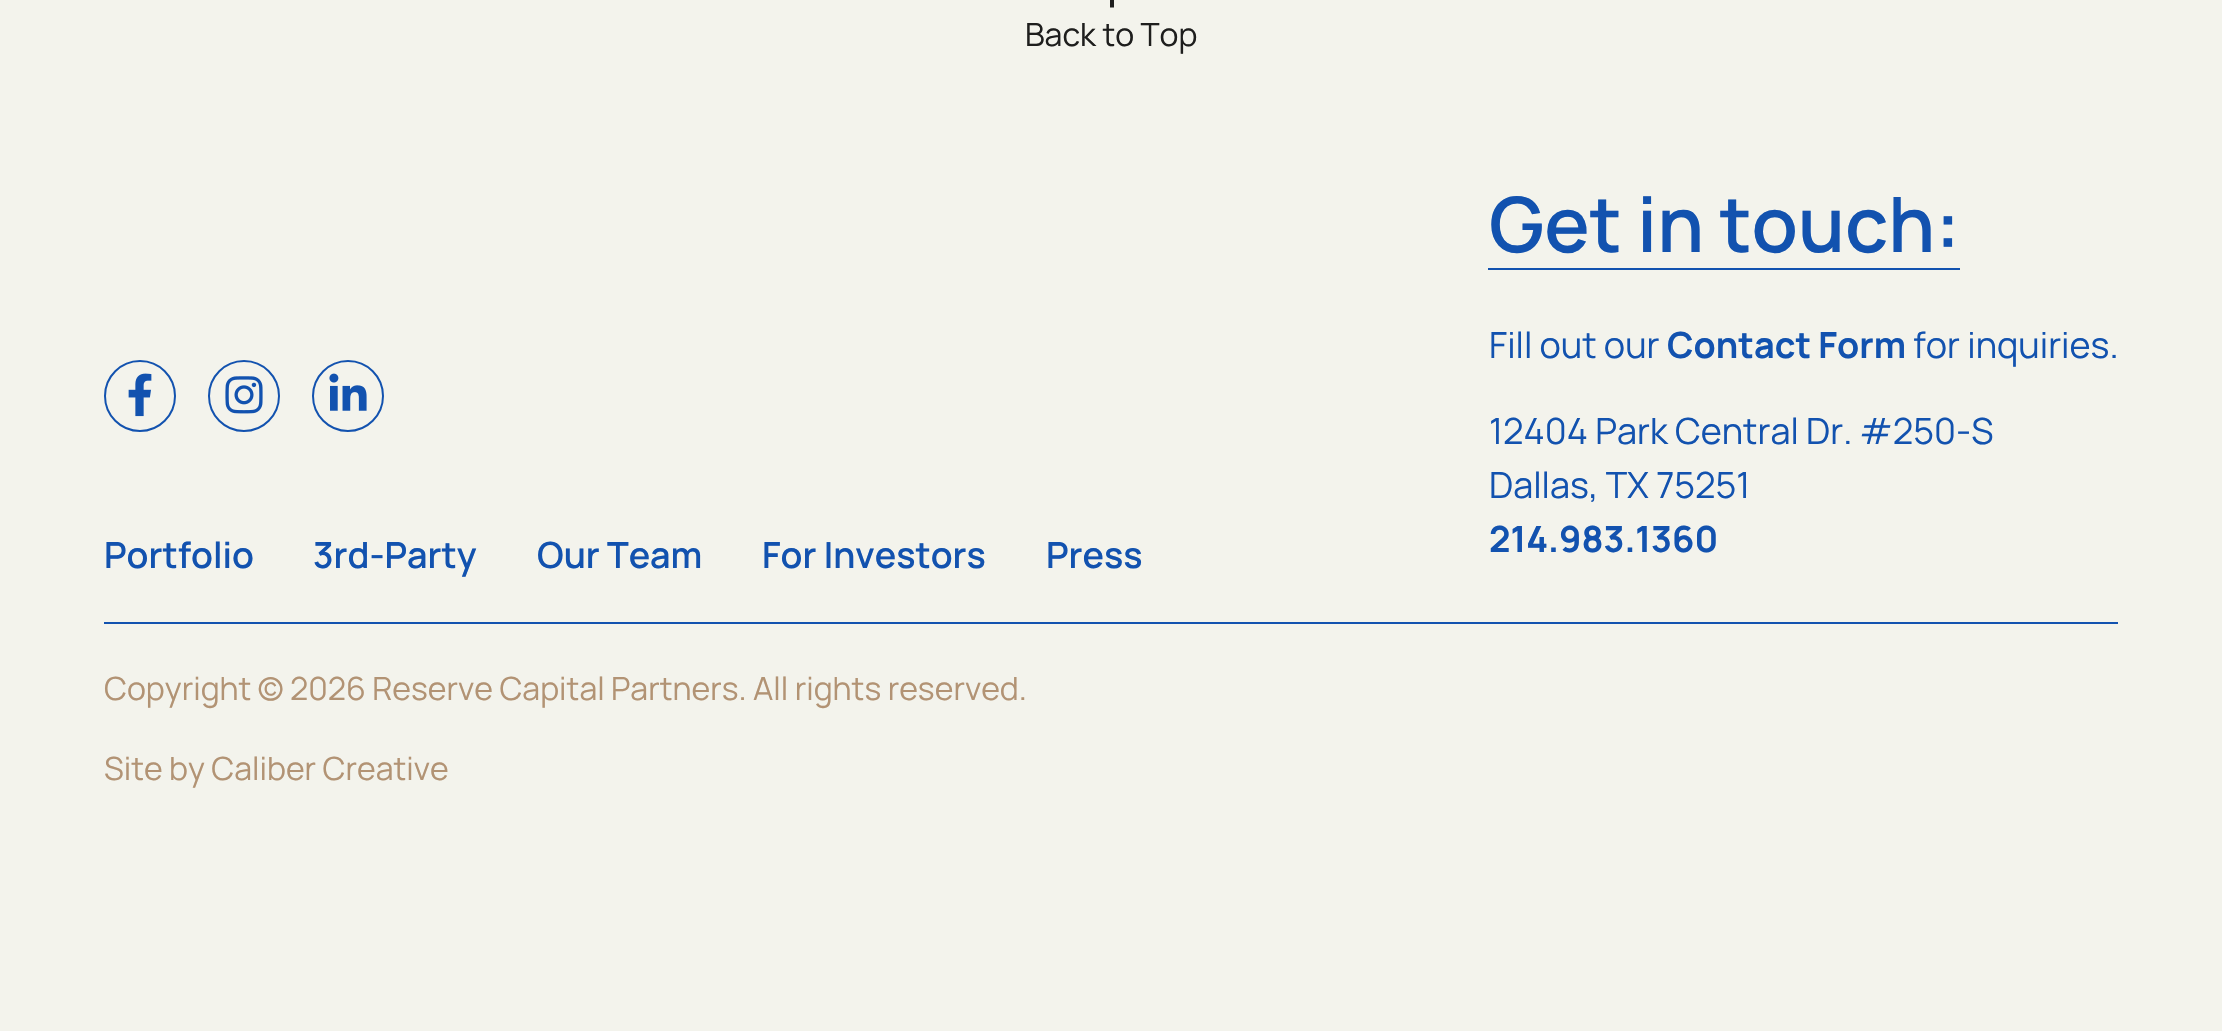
void draw(SkCanvas* canvas) {
    SkPaint paint;
    paint.setAntiAlias(true);
    canvas->clear(0xFFF3F3EC);
    paint.setColor(0xFF1E1E1D);
    canvas->drawPath(SkPathBuilder(SkPathFillType::kEvenOdd).moveTo(1113, -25.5f).lineTo(1112, -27).lineTo(1094.5f, -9.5f).lineTo(1097, -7).lineTo(1110, -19.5f).lineTo(1110, 7.5f).lineTo(1114, 7.5f).lineTo(1114, -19.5f).lineTo(1126.5f, -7).lineTo(1129, -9.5f).close().detach(), paint);
    SkFont font1(fontMgr->matchFamilyStyle("Manrope", SkFontStyle::Normal()), 32);
    font1.setSubpixel(true);
    canvas->drawString("Back to Top", 1025, 46, font1, paint);
    paint.setColor(0xFF1252AF);
    canvas->drawRect(SkRect::MakeXYWH(1488, 268, 472, 2), paint);
    SkFont font2(fontMgr->matchFamilyStyle("Manrope", SkFontStyle(600, SkFontStyle::kNormal_Width, SkFontStyle::kUpright_Slant)), 76.25f);
    font2.setSubpixel(true);
    canvas->drawString("Get in touch:", 1489, 252, font2, paint);
    SkFont font3(fontMgr->matchFamilyStyle("Manrope", SkFontStyle::Normal()), 36);
    font3.setSubpixel(true);
    canvas->drawString("Fill out our", 1489, 358, font3, paint);
    SkFont font4(fontMgr->matchFamilyStyle("Manrope", SkFontStyle::Bold()), 36);
    font4.setSubpixel(true);
    canvas->drawString("Contact Form", 1667, 358, font4, paint);
    canvas->drawString("for inquiries.", 1913, 358, font3, paint);
    canvas->drawString("12404 Park Central Dr. #250-S", 1489, 444, font3, paint);
    canvas->drawString("Dallas, TX 75251", 1489, 498, font3, paint);
    canvas->drawString("214.983.1360", 1489, 552, font4, paint);
    paint.setStyle(SkPaint::kStroke_Style);
    paint.setStrokeWidth(2);
    canvas->drawCircle(140, 396, 35, paint);
    canvas->drawImageRect(SkImages::DeferredFromEncodedData(SkData::MakeFromFileName("img1.png")), SkRect::MakeXYWH(128, 373, 24, 44), SkSamplingOptions());
    canvas->drawCircle(244, 396, 35, paint);
    canvas->drawImageRect(SkImages::DeferredFromEncodedData(SkData::MakeFromFileName("img2.png")), SkRect::MakeXYWH(225, 376, 38, 38), SkSamplingOptions());
    canvas->drawCircle(348, 396, 35, paint);
    canvas->drawImageRect(SkImages::DeferredFromEncodedData(SkData::MakeFromFileName("img3.png")), SkRect::MakeXYWH(329, 373, 38, 38), SkSamplingOptions());
    SkFont font5(fontMgr->matchFamilyStyle("Manrope", SkFontStyle(600, SkFontStyle::kNormal_Width, SkFontStyle::kUpright_Slant)), 36);
    font5.setSubpixel(true);
    paint.setStyle(SkPaint::kFill_Style);
    canvas->drawString("Portfolio", 104, 568, font5, paint);
    canvas->drawString("3rd-Party", 313, 568, font5, paint);
    canvas->drawString("Our Team", 537, 568, font5, paint);
    canvas->drawString("For Investors", 762, 568, font5, paint);
    canvas->drawString("Press", 1046, 568, font5, paint);
    canvas->drawRect(SkRect::MakeXYWH(104, 622, 2014, 2), paint);
    paint.setColor(0xFFB29374);
    canvas->drawString("Copyright © 2026 Reserve Capital Partners. All rights reserved.", 104, 700, font1, paint);
    canvas->drawString("Site by Caliber Creative", 104, 780, font1, paint);
}
